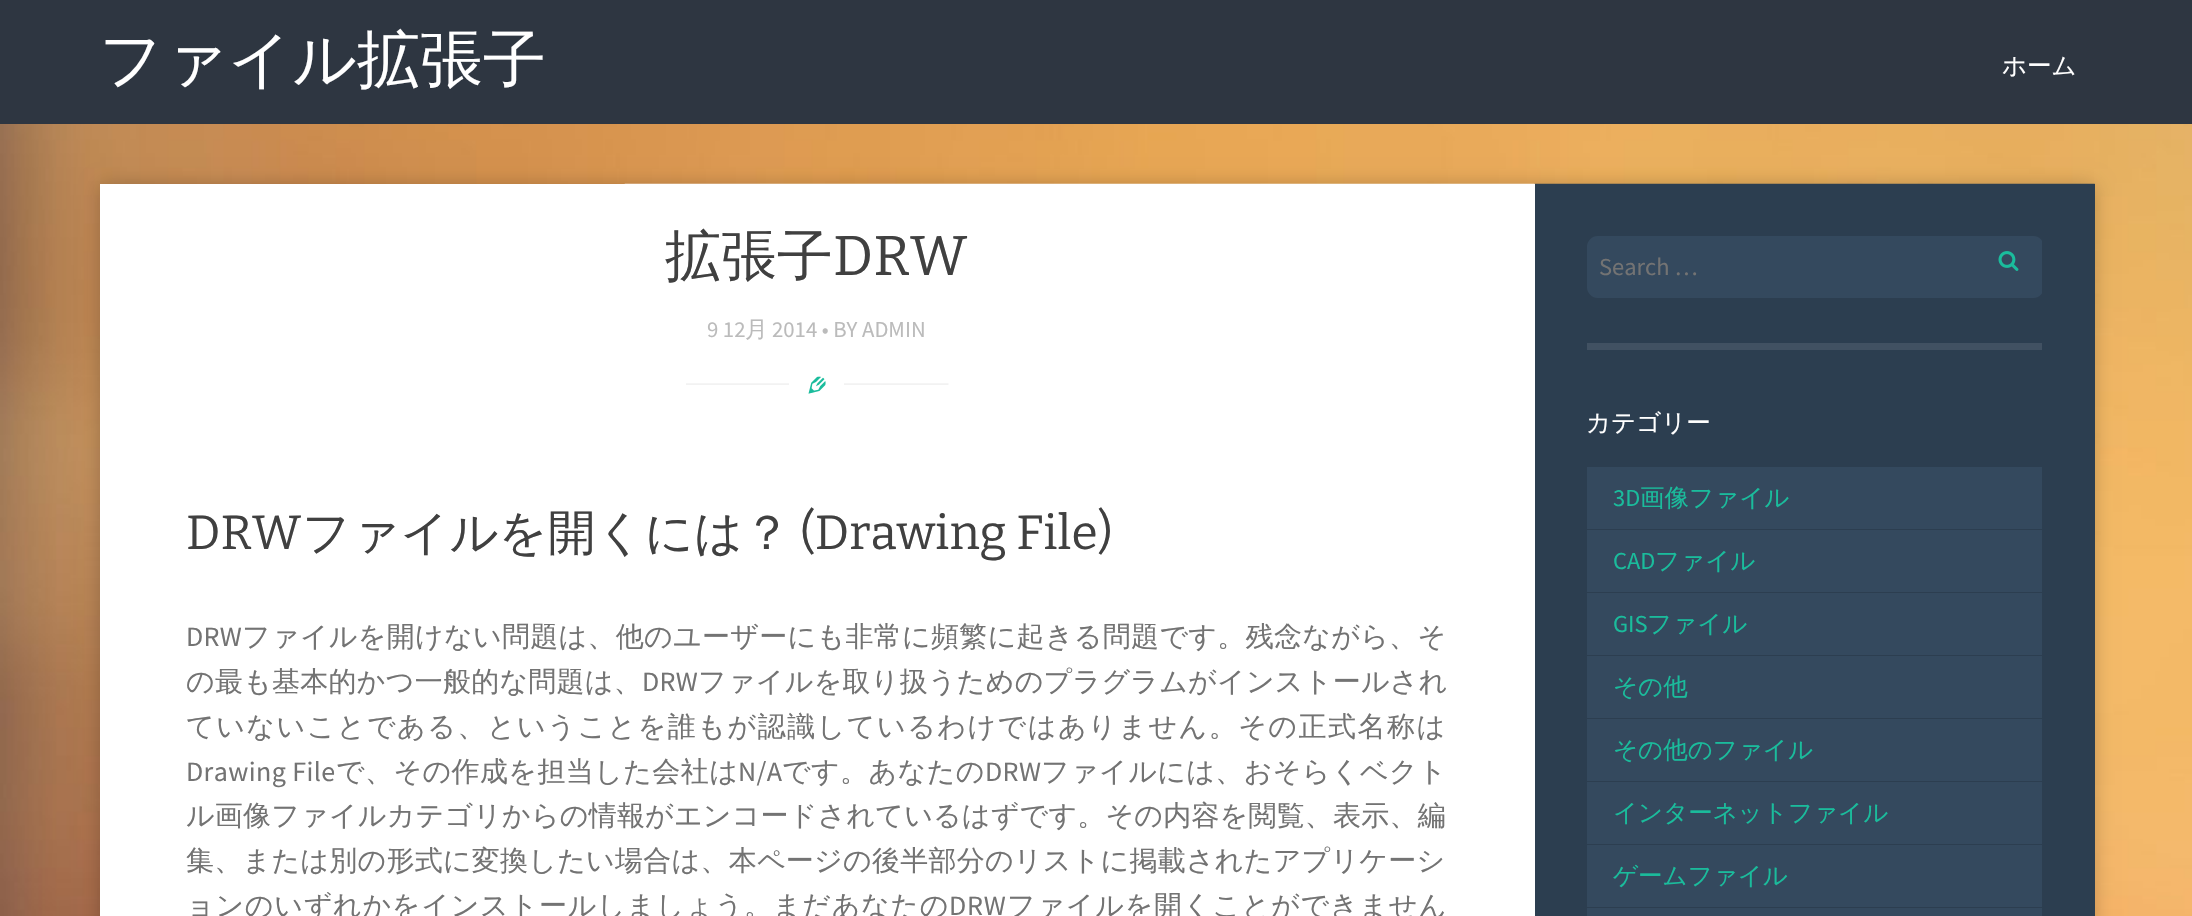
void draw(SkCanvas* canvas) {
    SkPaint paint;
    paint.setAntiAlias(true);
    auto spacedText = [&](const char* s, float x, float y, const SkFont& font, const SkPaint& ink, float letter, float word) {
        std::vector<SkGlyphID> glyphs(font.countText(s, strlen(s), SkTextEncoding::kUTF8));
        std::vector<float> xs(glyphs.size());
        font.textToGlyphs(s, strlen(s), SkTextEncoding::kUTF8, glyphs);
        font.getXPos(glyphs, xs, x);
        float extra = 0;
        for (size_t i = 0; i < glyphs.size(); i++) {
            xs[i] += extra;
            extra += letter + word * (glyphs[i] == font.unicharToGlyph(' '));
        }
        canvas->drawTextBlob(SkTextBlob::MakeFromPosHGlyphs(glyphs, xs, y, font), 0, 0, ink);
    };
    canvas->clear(0xFFFFFFFF);
    canvas->drawImageRect(SkImages::DeferredFromEncodedData(SkData::MakeFromFileName("img1.png")), SkRect::MakeXYWH(0, 124, 2192, 792), SkSamplingOptions());
    paint.setColor(0xFF2E3641);
    canvas->drawRect(SkRect::MakeXYWH(0, 0, 2192, 124), paint);
    SkFont font1(fontMgr->matchFamilyStyle("WenQuanYi Zen Hei", SkFontStyle(500, SkFontStyle::kNormal_Width, SkFontStyle::kUpright_Slant)), 63);
    font1.setSubpixel(true);
    paint.setColor(0xFFFFFFFF);
    canvas->drawString("ファイル拡張子", 99, 81, font1, paint);
    SkFont font2(fontMgr->matchFamilyStyle("WenQuanYi Zen Hei", SkFontStyle(500, SkFontStyle::kNormal_Width, SkFontStyle::kUpright_Slant)), 24.5f);
    font2.setSubpixel(true);
    canvas->drawString("ホーム", 2002, 74, font2, paint);
    paint.setColor(0x33000000);
    paint.setMaskFilter(SkMaskFilter::MakeBlur(kNormal_SkBlurStyle, 9));
    canvas->drawRect(SkRect::MakeXYWH(100, 184, 1995, 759), paint);
    paint.setMaskFilter(nullptr);
    canvas->drawImageRect(SkImages::DeferredFromEncodedData(SkData::MakeFromFileName("img2.png")), SkRect::MakeXYWH(624, 183, 1471, 1), SkSamplingOptions());
    paint.setColor(0xFFFFFFFF);
    canvas->drawRect(SkRect::MakeXYWH(100, 184, 1435, 732), paint);
    SkFont font3(fontMgr->matchFamilyStyle("WenQuanYi Zen Hei", SkFontStyle(500, SkFontStyle::kNormal_Width, SkFontStyle::kUpright_Slant)), 56);
    font3.setSubpixel(true);
    paint.setColor(0xFF404040);
    canvas->drawString("拡張子", 665, 275, font3, paint);
    SkFont font4(fontMgr->matchFamilyStyle("Bitter", SkFontStyle::Normal()), 56);
    font4.setSubpixel(true);
    canvas->drawString("DRW", 833, 275, font4, paint);
    SkFont font5(fontMgr->matchFamilyStyle("Source Sans Pro", SkFontStyle::Normal()), 22.75f);
    font5.setSubpixel(true);
    paint.setColor(0xFFBBBBBB);
    canvas->drawString("9 12", 707, 337, font5, paint);
    SkFont font6(fontMgr->matchFamilyStyle("WenQuanYi Zen Hei", SkFontStyle(500, SkFontStyle::kNormal_Width, SkFontStyle::kUpright_Slant)), 22.75f);
    font6.setSubpixel(true);
    canvas->drawString("月", 745, 337, font6, paint);
    canvas->drawString("2014 • BY ADMIN", 772, 337, font5, paint);
    canvas->drawImageRect(SkImages::DeferredFromEncodedData(SkData::MakeFromFileName("img3.png")), SkRect::MakeXYWH(686, 383, 263, 2), SkSamplingOptions());
    paint.setColor(0xFFFFFFFF);
    canvas->drawRect(SkRect::MakeXYWH(789, 383, 55, 2), paint);
    canvas->drawImageRect(SkImages::DeferredFromEncodedData(SkData::MakeFromFileName("img4.png")), SkRect::MakeXYWH(808, 376, 18, 18), SkSamplingOptions());
    SkFont font7(fontMgr->matchFamilyStyle("Bitter", SkFontStyle::Normal()), 48);
    font7.setSubpixel(true);
    paint.setColor(0xFF404040);
    canvas->drawString("DRW", 186, 549, font7, paint);
    SkFont font8(fontMgr->matchFamilyStyle("WenQuanYi Zen Hei", SkFontStyle(500, SkFontStyle::kNormal_Width, SkFontStyle::kUpright_Slant)), 48);
    font8.setSubpixel(true);
    canvas->drawString("ファイルを開くには？", 302, 549, font8, paint);
    canvas->drawString("(Drawing File)", 800, 549, font7, paint);
    SkFont font9(fontMgr->matchFamilyStyle("Source Sans Pro", SkFontStyle::Normal()), 28);
    font9.setSubpixel(true);
    paint.setColor(0xFF737373);
    spacedText("DRW", 186, 646, font9, paint, 0.3f, 0);
    SkFont font10(fontMgr->matchFamilyStyle("WenQuanYi Zen Hei", SkFontStyle(500, SkFontStyle::kNormal_Width, SkFontStyle::kUpright_Slant)), 28);
    font10.setSubpixel(true);
    spacedText("ファイルを開けない問題は、他のユーザーにも非常に頻繁に起きる問題です。残念ながら、そ", 242, 646, font10, paint, 0.3f, 0);
    spacedText("の最も基本的かつ一般的な問題は、", 186, 691, font10, paint, 0.25f, 0);
    spacedText("DRW", 642, 691, font9, paint, 0.25f, 0);
    spacedText("ファイルを取り扱うためのプラグラムがインストールされ", 698, 691, font10, paint, 0.25f, 0);
    spacedText("ていないことである、ということを誰もが認識しているわけではありません。その正式名称は", 186, 736, font10, paint, 1.5f, 0);
    spacedText("Drawing File", 186, 781, font9, paint, 0.4f, 0);
    spacedText("で、その作成を担当した会社は", 336, 781, font10, paint, 0.4f, 0);
    spacedText("N/A", 738, 781, font9, paint, 0.4f, 0);
    spacedText("です。あなたの", 782, 781, font10, paint, 0.4f, 0);
    spacedText("DRW", 985, 781, font9, paint, 0.4f, 0);
    spacedText("ファイルには、おそらくベクト", 1041, 781, font10, paint, 0.4f, 0);
    spacedText("ル画像ファイルカテゴリからの情報がエンコードされているはずです。その内容を閲覧、表示、編", 186, 825, font10, paint, 0.2f, 0);
    spacedText("集、または別の形式に変換したい場合は、本ページの後半部分のリストに掲載されたアプリケーシ", 186, 870, font10, paint, 0.25f, 0);
    spacedText("ョンのいずれかをインストールしましょう。まだあなたの", 186, 915, font10, paint, 0.75f, 0);
    spacedText("DRW", 949, 915, font9, paint, 0.75f, 0);
    spacedText("ファイルを開くことができません", 1007, 915, font10, paint, 0.75f, 0);
    paint.setColor(0xFF2C3E50);
    canvas->drawRect(SkRect::MakeXYWH(1535, 184, 560, 732), paint);
    paint.setColor(0xFF415162);
    canvas->drawRect(SkRect::MakeXYWH(1587, 343, 455, 7), paint);
    canvas->save();
    canvas->clipRect(SkRect::MakeXYWH(1587, 236, 455, 107));
    paint.setColor(0xFF34495E);
    canvas->drawRoundRect(SkRect::MakeXYWH(1587, 236, 457, 62), 11, 11, paint);
    canvas->restore();
    SkFont font11(fontMgr->matchFamilyStyle("Source Sans Pro", SkFontStyle::Normal()), 24.5f);
    font11.setSubpixel(true);
    paint.setColor(0xFF737373);
    canvas->drawString("Search …", 1599, 275, font11, paint);
    canvas->drawImageRect(SkImages::DeferredFromEncodedData(SkData::MakeFromFileName("img5.png")), SkRect::MakeXYWH(1998, 251, 21, 20), SkSamplingOptions());
    paint.setColor(0xFFFFFFFF);
    canvas->drawString("カテゴリー", 1586, 431, font2, paint);
    paint.setColor(0xFF34495E);
    canvas->drawRect(SkRect::MakeXYWH(1587, 467, 455, 62), paint);
    paint.setColor(0xFF1ABC9C);
    canvas->drawString("3D", 1613, 506, font11, paint);
    canvas->drawString("画像ファイル", 1640, 506, font2, paint);
    paint.setColor(0xFF34495E);
    canvas->drawRect(SkRect::MakeXYWH(1587, 530, 455, 62), paint);
    paint.setColor(0xFF1ABC9C);
    canvas->drawString("CAD", 1613, 569, font11, paint);
    canvas->drawString("ファイル", 1655, 569, font2, paint);
    paint.setColor(0xFF34495E);
    canvas->drawRect(SkRect::MakeXYWH(1587, 593, 455, 62), paint);
    paint.setColor(0xFF1ABC9C);
    canvas->drawString("GIS", 1613, 632, font11, paint);
    canvas->drawString("ファイル", 1647, 632, font2, paint);
    paint.setColor(0xFF34495E);
    canvas->drawRect(SkRect::MakeXYWH(1587, 656, 455, 62), paint);
    paint.setColor(0xFF1ABC9C);
    canvas->drawString("その他", 1613, 695, font2, paint);
    paint.setColor(0xFF34495E);
    canvas->drawRect(SkRect::MakeXYWH(1587, 719, 455, 62), paint);
    paint.setColor(0xFF1ABC9C);
    canvas->drawString("その他のファイル", 1613, 758, font2, paint);
    paint.setColor(0xFF34495E);
    canvas->drawRect(SkRect::MakeXYWH(1587, 782, 455, 62), paint);
    paint.setColor(0xFF1ABC9C);
    canvas->drawString("インターネットファイル", 1613, 821, font2, paint);
    paint.setColor(0xFF34495E);
    canvas->drawRect(SkRect::MakeXYWH(1587, 845, 455, 62), paint);
    paint.setColor(0xFF1ABC9C);
    canvas->drawString("ゲームファイル", 1613, 884, font2, paint);
    paint.setColor(0xFF34495E);
    canvas->drawRect(SkRect::MakeXYWH(1587, 908, 455, 8), paint);
}
